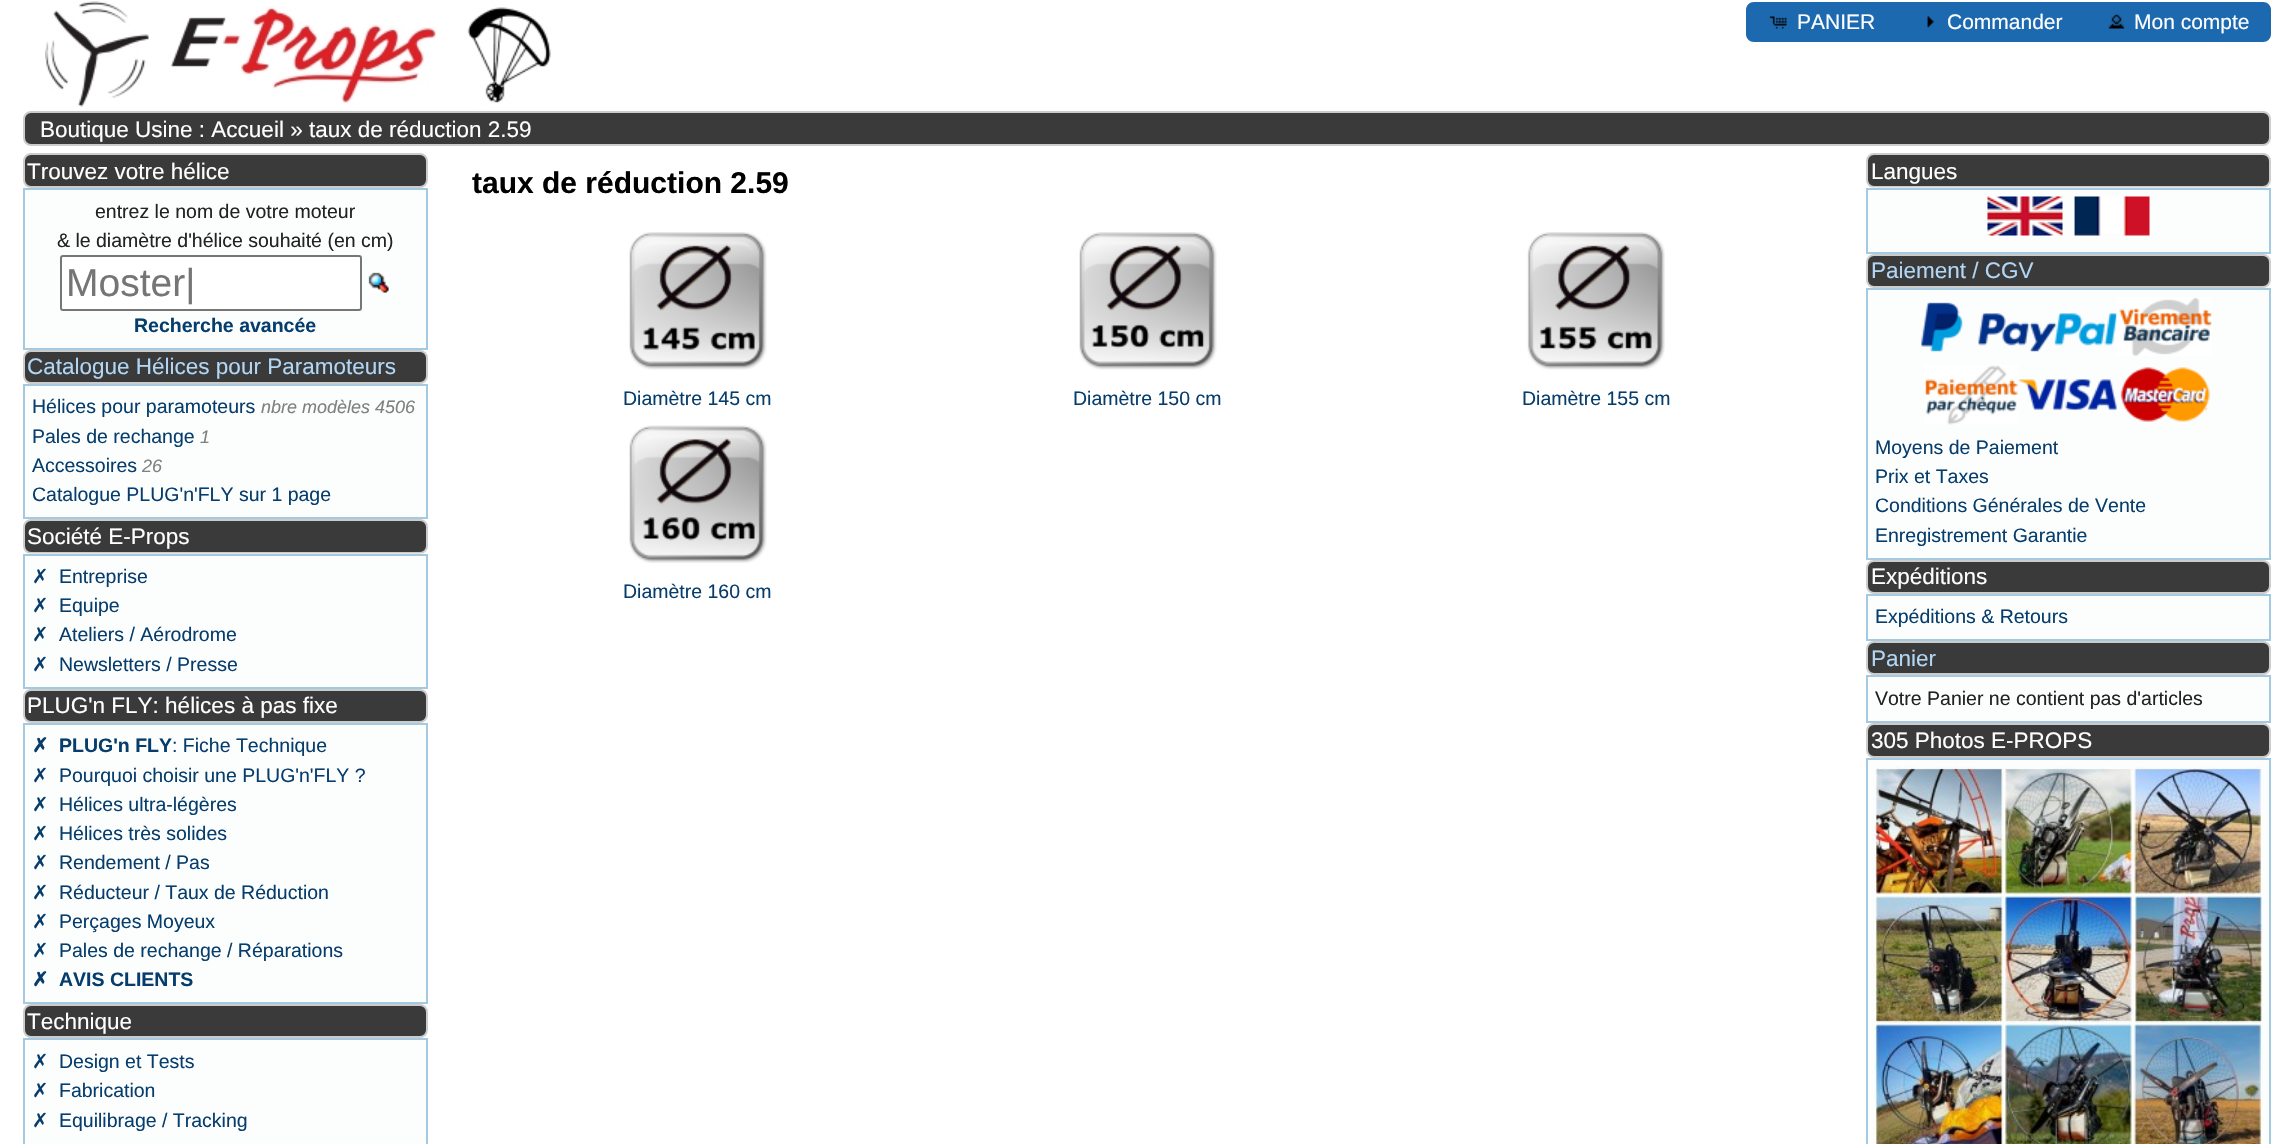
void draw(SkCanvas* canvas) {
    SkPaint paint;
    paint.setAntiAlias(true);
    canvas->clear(0xFFFFFFFF);
    canvas->drawImageRect(SkImages::DeferredFromEncodedData(SkData::MakeFromFileName("img1.png")), SkRect::MakeXYWH(45, 1, 506, 106), SkSamplingOptions());
    paint.setColor(0xFF1D69AF);
    canvas->drawPath(SkPathBuilder().moveTo(1754, 2).lineTo(1896, 2).lineTo(1896, 42).lineTo(1754, 42).cubicTo(1749.5f, 42, 1746, 38.5f, 1746, 34).lineTo(1746, 10).cubicTo(1746, 5.5f, 1749.5f, 2, 1754, 2).close().detach(), paint);
    canvas->drawImageRect(SkImages::DeferredFromEncodedData(SkData::MakeFromFileName("img2.png")), SkRect::MakeXYWH(1769, 16, 18, 13), SkSamplingOptions());
    SkFont font1(fontMgr->matchFamilyStyle("Liberation Sans", SkFontStyle::Normal()), 21);
    font1.setSubpixel(true);
    paint.setColor(0xFFFFFFFF);
    canvas->drawString("PANIER", 1797, 29, font1, paint);
    paint.setColor(0xFF1D69AF);
    canvas->drawRect(SkRect::MakeXYWH(1896, 2, 188, 40), paint);
    canvas->drawImageRect(SkImages::DeferredFromEncodedData(SkData::MakeFromFileName("img3.png")), SkRect::MakeXYWH(1927, 16, 7, 12), SkSamplingOptions());
    paint.setColor(0xFFFFFFFF);
    canvas->drawString("Commander", 1947, 29, font1, paint);
    paint.setColor(0xFF1D69AF);
    canvas->drawPath(SkPathBuilder().moveTo(2084, 2).lineTo(2263, 2).cubicTo(2267.5f, 2, 2271, 5.5f, 2271, 10).lineTo(2271, 34).cubicTo(2271, 38.5f, 2267.5f, 42, 2263, 42).lineTo(2084, 42).close().detach(), paint);
    canvas->drawImageRect(SkImages::DeferredFromEncodedData(SkData::MakeFromFileName("img4.png")), SkRect::MakeXYWH(2108, 14, 17, 15), SkSamplingOptions());
    paint.setColor(0xFFFFFFFF);
    canvas->drawString("Mon compte", 2134, 29, font1, paint);
    paint.setColor(0xFF3A3A3A);
    canvas->drawRoundRect(SkRect::MakeXYWH(24, 112, 2246, 33), 7, 7, paint);
    paint.setStyle(SkPaint::kStroke_Style);
    paint.setStrokeWidth(2);
    paint.setColor(0xFFCCCCCC);
    canvas->drawRoundRect(SkRect::MakeXYWH(24, 112, 2246, 33), 7, 7, paint);
    SkFont font2(fontMgr->matchFamilyStyle("Liberation Sans", SkFontStyle::Normal()), 22.5f);
    font2.setSubpixel(true);
    paint.setStyle(SkPaint::kFill_Style);
    paint.setColor(0xFFFFFFFF);
    canvas->drawString("Boutique Usine : Accueil » taux de réduction 2.59", 40, 137, font2, paint);
    paint.setColor(0xFF3A3A3A);
    canvas->drawRoundRect(SkRect::MakeXYWH(24, 154, 403, 33), 7, 7, paint);
    paint.setStyle(SkPaint::kStroke_Style);
    paint.setColor(0xFFCCCCCC);
    canvas->drawRoundRect(SkRect::MakeXYWH(24, 154, 403, 33), 7, 7, paint);
    paint.setStyle(SkPaint::kFill_Style);
    paint.setColor(0xFFFFFFFF);
    canvas->drawString("Trouvez votre hélice", 27, 179, font2, paint);
    paint.setColor(0xFFFCFDFD);
    canvas->drawRect(SkRect::MakeXYWH(24, 189, 403, 160), paint);
    paint.setStyle(SkPaint::kStroke_Style);
    paint.setColor(0xFFA6C9E2);
    canvas->drawRect(SkRect::MakeXYWH(24, 189, 403, 160), paint);
    SkFont font3(fontMgr->matchFamilyStyle("Liberation Sans", SkFontStyle::Normal()), 19.5f);
    font3.setSubpixel(true);
    paint.setStyle(SkPaint::kFill_Style);
    paint.setColor(0xFF222222);
    canvas->drawString("entrez le nom de votre moteur", 95, 218, font3, paint);
    canvas->drawString("& le diamètre d'hélice souhaité (en cm)", 57, 247, font3, paint);
    paint.setColor(0xFFFFFFFF);
    canvas->drawRoundRect(SkRect::MakeXYWH(61, 256, 300, 54), 2, 2, paint);
    paint.setStyle(SkPaint::kStroke_Style);
    paint.setColor(0xFF767676);
    canvas->drawRoundRect(SkRect::MakeXYWH(61, 256, 300, 54), 2, 2, paint);
    SkFont font4(fontMgr->matchFamilyStyle("Liberation Sans", SkFontStyle::Normal()), 39);
    font4.setSubpixel(true);
    paint.setStyle(SkPaint::kFill_Style);
    paint.setColor(0xFF757575);
    canvas->drawString("Moster|", 66, 296, font4, paint);
    canvas->drawImageRect(SkImages::DeferredFromEncodedData(SkData::MakeFromFileName("img5.png")), SkRect::MakeXYWH(368, 272, 21, 21), SkSamplingOptions());
    SkFont font5(fontMgr->matchFamilyStyle("Liberation Sans", SkFontStyle::Bold()), 19.5f);
    font5.setSubpixel(true);
    paint.setColor(0xFF063D6D);
    canvas->drawString("Recherche avancée", 134, 332, font5, paint);
    paint.setColor(0xFF3A3A3A);
    canvas->drawRoundRect(SkRect::MakeXYWH(24, 351, 403, 32), 7, 7, paint);
    paint.setStyle(SkPaint::kStroke_Style);
    paint.setColor(0xFFCCCCCC);
    canvas->drawRoundRect(SkRect::MakeXYWH(24, 351, 403, 32), 7, 7, paint);
    paint.setStyle(SkPaint::kFill_Style);
    paint.setColor(0xFFB2D6F5);
    canvas->drawString("Catalogue Hélices pour Paramoteurs", 27, 374, font2, paint);
    paint.setColor(0xFFFCFDFD);
    canvas->drawRect(SkRect::MakeXYWH(24, 385, 403, 133), paint);
    paint.setStyle(SkPaint::kStroke_Style);
    paint.setColor(0xFFA6C9E2);
    canvas->drawRect(SkRect::MakeXYWH(24, 385, 403, 133), paint);
    paint.setStyle(SkPaint::kFill_Style);
    paint.setColor(0xFF063D6D);
    canvas->drawString("Hélices pour paramoteurs", 32, 413, font3, paint);
    SkFont font6(fontMgr->matchFamilyStyle("Liberation Sans", SkFontStyle::Italic()), 18);
    font6.setSubpixel(true);
    paint.setColor(0xFF808080);
    canvas->drawString("nbre modèles 4506", 261, 413, font6, paint);
    paint.setColor(0xFF063D6D);
    canvas->drawString("Pales de rechange", 32, 443, font3, paint);
    paint.setColor(0xFF808080);
    canvas->drawString("1", 200, 443, font6, paint);
    paint.setColor(0xFF063D6D);
    canvas->drawString("Accessoires", 32, 472, font3, paint);
    paint.setColor(0xFF808080);
    canvas->drawString("26", 142, 472, font6, paint);
    paint.setColor(0xFF063D6D);
    canvas->drawString("Catalogue PLUG'n'FLY sur 1 page", 32, 501, font3, paint);
    paint.setColor(0xFF3A3A3A);
    canvas->drawRoundRect(SkRect::MakeXYWH(24, 520, 403, 33), 7, 7, paint);
    paint.setStyle(SkPaint::kStroke_Style);
    paint.setColor(0xFFCCCCCC);
    canvas->drawRoundRect(SkRect::MakeXYWH(24, 520, 403, 33), 7, 7, paint);
    paint.setStyle(SkPaint::kFill_Style);
    paint.setColor(0xFFFFFFFF);
    canvas->drawString("Société E-Props", 27, 544, font2, paint);
    paint.setColor(0xFFFCFDFD);
    canvas->drawRect(SkRect::MakeXYWH(24, 555, 403, 133), paint);
    paint.setStyle(SkPaint::kStroke_Style);
    paint.setColor(0xFFA6C9E2);
    canvas->drawRect(SkRect::MakeXYWH(24, 555, 403, 133), paint);
    paint.setStyle(SkPaint::kFill_Style);
    paint.setColor(0x80FBFDFD);
    canvas->drawRect(SkRect::MakeXYWH(27, 553, 397, 1), paint);
    SkFont font7(fontMgr->matchFamilyStyle("DejaVu Sans", SkFontStyle::Normal()), 19.5f);
    font7.setSubpixel(true);
    paint.setColor(0xFF063D6D);
    canvas->drawString("✗", 32, 583, font7, paint);
    canvas->drawString("Entreprise", 59, 583, font3, paint);
    canvas->drawString("✗", 32, 612, font7, paint);
    canvas->drawString("Equipe", 59, 612, font3, paint);
    canvas->drawString("✗", 32, 641, font7, paint);
    canvas->drawString("Ateliers / Aérodrome", 59, 641, font3, paint);
    canvas->drawString("✗", 32, 671, font7, paint);
    canvas->drawString("Newsletters / Presse", 59, 671, font3, paint);
    paint.setColor(0xFF3A3A3A);
    canvas->drawRoundRect(SkRect::MakeXYWH(24, 690, 403, 32), 7, 7, paint);
    paint.setStyle(SkPaint::kStroke_Style);
    paint.setColor(0xFFCCCCCC);
    canvas->drawRoundRect(SkRect::MakeXYWH(24, 690, 403, 32), 7, 7, paint);
    paint.setStyle(SkPaint::kFill_Style);
    paint.setColor(0xFFFFFFFF);
    canvas->drawString("PLUG'n FLY: hélices à pas fixe", 27, 713, font2, paint);
    paint.setColor(0xFFFCFDFD);
    canvas->drawRect(SkRect::MakeXYWH(24, 724, 403, 279), paint);
    paint.setStyle(SkPaint::kStroke_Style);
    paint.setColor(0xFFA6C9E2);
    canvas->drawRect(SkRect::MakeXYWH(24, 724, 403, 279), paint);
    SkFont font8(fontMgr->matchFamilyStyle("DejaVu Sans", SkFontStyle::Bold()), 19.5f);
    font8.setSubpixel(true);
    paint.setStyle(SkPaint::kFill_Style);
    paint.setColor(0xFF063D6D);
    canvas->drawString("✗", 32, 752, font8, paint);
    canvas->drawString("PLUG'n FLY", 59, 752, font5, paint);
    canvas->drawString(": Fiche Technique", 172, 752, font3, paint);
    canvas->drawString("✗", 32, 782, font7, paint);
    canvas->drawString("Pourquoi choisir une PLUG'n'FLY ?", 59, 782, font3, paint);
    canvas->drawString("✗", 32, 811, font7, paint);
    canvas->drawString("Hélices ultra-légères", 59, 811, font3, paint);
    canvas->drawString("✗", 32, 840, font7, paint);
    canvas->drawString("Hélices très solides", 59, 840, font3, paint);
    canvas->drawString("✗", 32, 869, font7, paint);
    canvas->drawString("Rendement / Pas", 59, 869, font3, paint);
    canvas->drawString("✗", 32, 899, font7, paint);
    canvas->drawString("Réducteur / Taux de Réduction", 59, 899, font3, paint);
    canvas->drawString("✗", 32, 928, font7, paint);
    canvas->drawString("Perçages Moyeux", 59, 928, font3, paint);
    canvas->drawString("✗", 32, 957, font7, paint);
    canvas->drawString("Pales de rechange / Réparations", 59, 957, font3, paint);
    canvas->drawString("✗", 32, 986, font8, paint);
    canvas->drawString("AVIS CLIENTS", 59, 986, font5, paint);
    paint.setColor(0xFF3A3A3A);
    canvas->drawRoundRect(SkRect::MakeXYWH(24, 1005, 403, 32), 7, 7, paint);
    paint.setStyle(SkPaint::kStroke_Style);
    paint.setColor(0xFFCCCCCC);
    canvas->drawRoundRect(SkRect::MakeXYWH(24, 1005, 403, 32), 7, 7, paint);
    paint.setStyle(SkPaint::kFill_Style);
    paint.setColor(0xFFFFFFFF);
    canvas->drawString("Technique", 27, 1029, font2, paint);
    paint.setColor(0xFFFCFDFD);
    canvas->drawRect(SkRect::MakeXYWH(24, 1039, 403, 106), paint);
    paint.setStyle(SkPaint::kStroke_Style);
    paint.setColor(0xFFA6C9E2);
    canvas->drawRect(SkRect::MakeXYWH(24, 1039, 403, 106), paint);
    paint.setStyle(SkPaint::kFill_Style);
    paint.setColor(0xFF063D6D);
    canvas->drawString("✗", 32, 1068, font7, paint);
    canvas->drawString("Design et Tests", 59, 1068, font3, paint);
    canvas->drawString("✗", 32, 1097, font7, paint);
    canvas->drawString("Fabrication", 59, 1097, font3, paint);
    canvas->drawString("✗", 32, 1127, font7, paint);
    canvas->drawString("Equilibrage / Tracking", 59, 1127, font3, paint);
    SkFont font9(fontMgr->matchFamilyStyle("Liberation Sans", SkFontStyle::Bold()), 30);
    font9.setSubpixel(true);
    paint.setColor(0xFF000000);
    canvas->drawString("taux de réduction 2.59", 472, 193, font9, paint);
    canvas->drawImageRect(SkImages::DeferredFromEncodedData(SkData::MakeFromFileName("img6.png")), SkRect::MakeXYWH(629, 232, 138, 138), SkSamplingOptions());
    paint.setColor(0xFF063D6D);
    canvas->drawString("Diamètre 145 cm", 623, 405, font3, paint);
    canvas->drawImageRect(SkImages::DeferredFromEncodedData(SkData::MakeFromFileName("img7.png")), SkRect::MakeXYWH(1079, 232, 138, 138), SkSamplingOptions());
    canvas->drawString("Diamètre 150 cm", 1073, 405, font3, paint);
    canvas->drawImageRect(SkImages::DeferredFromEncodedData(SkData::MakeFromFileName("img8.png")), SkRect::MakeXYWH(1527, 232, 138, 138), SkSamplingOptions());
    canvas->drawString("Diamètre 155 cm", 1522, 405, font3, paint);
    canvas->drawImageRect(SkImages::DeferredFromEncodedData(SkData::MakeFromFileName("img9.png")), SkRect::MakeXYWH(629, 425, 138, 138), SkSamplingOptions());
    canvas->drawString("Diamètre 160 cm", 623, 598, font3, paint);
    paint.setColor(0xFF3A3A3A);
    canvas->drawRoundRect(SkRect::MakeXYWH(1867, 154, 403, 33), 7, 7, paint);
    paint.setStyle(SkPaint::kStroke_Style);
    paint.setColor(0xFFCCCCCC);
    canvas->drawRoundRect(SkRect::MakeXYWH(1867, 154, 403, 33), 7, 7, paint);
    paint.setStyle(SkPaint::kFill_Style);
    paint.setColor(0xFFFFFFFF);
    canvas->drawString("Langues", 1871, 179, font2, paint);
    paint.setColor(0xFFFCFDFD);
    canvas->drawRect(SkRect::MakeXYWH(1867, 189, 403, 64), paint);
    paint.setStyle(SkPaint::kStroke_Style);
    paint.setColor(0xFFA6C9E2);
    canvas->drawRect(SkRect::MakeXYWH(1867, 189, 403, 64), paint);
    paint.setStyle(SkPaint::kFill_Style);
    paint.setColor(0x80FDFFFF);
    canvas->drawRect(SkRect::MakeXYWH(1870, 187, 397, 1), paint);
    canvas->drawImageRect(SkImages::DeferredFromEncodedData(SkData::MakeFromFileName("img10.png")), SkRect::MakeXYWH(1987, 196, 76, 40), SkSamplingOptions());
    canvas->drawImageRect(SkImages::DeferredFromEncodedData(SkData::MakeFromFileName("img11.png")), SkRect::MakeXYWH(2074, 196, 76, 40), SkSamplingOptions());
    paint.setColor(0xFF3A3A3A);
    canvas->drawRoundRect(SkRect::MakeXYWH(1867, 255, 403, 32), 7, 7, paint);
    paint.setStyle(SkPaint::kStroke_Style);
    paint.setColor(0xFFCCCCCC);
    canvas->drawRoundRect(SkRect::MakeXYWH(1867, 255, 403, 32), 7, 7, paint);
    paint.setStyle(SkPaint::kFill_Style);
    paint.setColor(0xFFB2D6F5);
    canvas->drawString("Paiement / CGV", 1871, 278, font2, paint);
    paint.setColor(0xFFFCFDFD);
    canvas->drawRect(SkRect::MakeXYWH(1867, 289, 403, 270), paint);
    paint.setStyle(SkPaint::kStroke_Style);
    paint.setColor(0xFFA6C9E2);
    canvas->drawRect(SkRect::MakeXYWH(1867, 289, 403, 270), paint);
    canvas->drawImageRect(SkImages::DeferredFromEncodedData(SkData::MakeFromFileName("img12.png")), SkRect::MakeXYWH(1921, 302, 196, 50), SkSamplingOptions());
    canvas->drawImageRect(SkImages::DeferredFromEncodedData(SkData::MakeFromFileName("img13.png")), SkRect::MakeXYWH(2116, 297, 96, 59), SkSamplingOptions());
    canvas->drawImageRect(SkImages::DeferredFromEncodedData(SkData::MakeFromFileName("img14.png")), SkRect::MakeXYWH(1924, 365, 94, 60), SkSamplingOptions());
    canvas->drawImageRect(SkImages::DeferredFromEncodedData(SkData::MakeFromFileName("img15.png")), SkRect::MakeXYWH(2019, 379, 98, 31), SkSamplingOptions());
    canvas->drawImageRect(SkImages::DeferredFromEncodedData(SkData::MakeFromFileName("img16.png")), SkRect::MakeXYWH(2120, 367, 90, 55), SkSamplingOptions());
    paint.setStyle(SkPaint::kFill_Style);
    paint.setColor(0xFF063D6D);
    canvas->drawString("Moyens de Paiement", 1875, 454, font3, paint);
    canvas->drawString("Prix et Taxes", 1875, 483, font3, paint);
    canvas->drawString("Conditions Générales de Vente", 1875, 512, font3, paint);
    canvas->drawString("Enregistrement Garantie", 1875, 542, font3, paint);
    paint.setColor(0xFF3A3A3A);
    canvas->drawRoundRect(SkRect::MakeXYWH(1867, 561, 403, 32), 7, 7, paint);
    paint.setStyle(SkPaint::kStroke_Style);
    paint.setColor(0xFFCCCCCC);
    canvas->drawRoundRect(SkRect::MakeXYWH(1867, 561, 403, 32), 7, 7, paint);
    paint.setStyle(SkPaint::kFill_Style);
    paint.setColor(0xFFFFFFFF);
    canvas->drawString("Expéditions", 1871, 584, font2, paint);
    paint.setColor(0xFFFCFDFD);
    canvas->drawRect(SkRect::MakeXYWH(1867, 595, 403, 45), paint);
    paint.setStyle(SkPaint::kStroke_Style);
    paint.setColor(0xFFA6C9E2);
    canvas->drawRect(SkRect::MakeXYWH(1867, 595, 403, 45), paint);
    paint.setStyle(SkPaint::kFill_Style);
    paint.setColor(0xFF063D6D);
    canvas->drawString("Expéditions & Retours", 1875, 623, font3, paint);
    paint.setColor(0xFF3A3A3A);
    canvas->drawRoundRect(SkRect::MakeXYWH(1867, 642, 403, 32), 7, 7, paint);
    paint.setStyle(SkPaint::kStroke_Style);
    paint.setColor(0xFFCCCCCC);
    canvas->drawRoundRect(SkRect::MakeXYWH(1867, 642, 403, 32), 7, 7, paint);
    paint.setStyle(SkPaint::kFill_Style);
    paint.setColor(0xFFB2D6F5);
    canvas->drawString("Panier", 1871, 666, font2, paint);
    paint.setColor(0xFFFCFDFD);
    canvas->drawRect(SkRect::MakeXYWH(1867, 676, 403, 46), paint);
    paint.setStyle(SkPaint::kStroke_Style);
    paint.setColor(0xFFA6C9E2);
    canvas->drawRect(SkRect::MakeXYWH(1867, 676, 403, 46), paint);
    paint.setStyle(SkPaint::kFill_Style);
    paint.setColor(0xFF222222);
    canvas->drawString("Votre Panier ne contient pas d'articles", 1875, 705, font3, paint);
    paint.setColor(0xFF3A3A3A);
    canvas->drawRoundRect(SkRect::MakeXYWH(1867, 724, 403, 33), 7, 7, paint);
    paint.setStyle(SkPaint::kStroke_Style);
    paint.setColor(0xFFCCCCCC);
    canvas->drawRoundRect(SkRect::MakeXYWH(1867, 724, 403, 33), 7, 7, paint);
    paint.setStyle(SkPaint::kFill_Style);
    paint.setColor(0xFFFFFFFF);
    canvas->drawString("305 Photos E-PROPS", 1871, 748, font2, paint);
    paint.setColor(0xFFFCFDFD);
    canvas->drawRect(SkRect::MakeXYWH(1867, 759, 403, 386), paint);
    paint.setStyle(SkPaint::kStroke_Style);
    paint.setColor(0xFFA6C9E2);
    canvas->drawRect(SkRect::MakeXYWH(1867, 759, 403, 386), paint);
    canvas->drawImageRect(SkImages::DeferredFromEncodedData(SkData::MakeFromFileName("img17.png")), SkRect::MakeXYWH(1875, 766, 387, 378), SkSamplingOptions());
}
